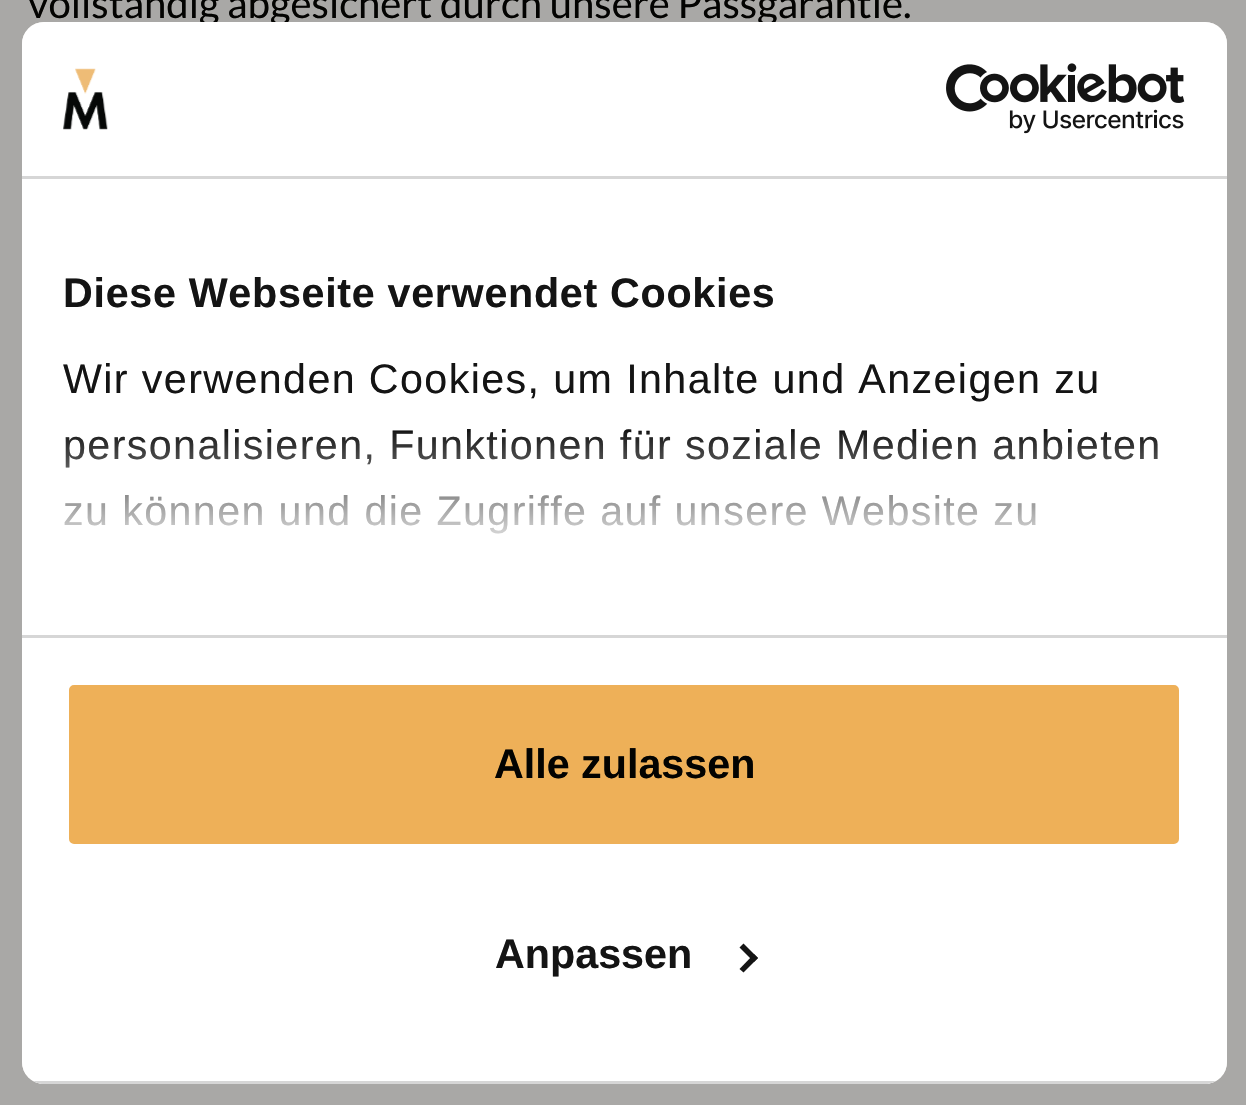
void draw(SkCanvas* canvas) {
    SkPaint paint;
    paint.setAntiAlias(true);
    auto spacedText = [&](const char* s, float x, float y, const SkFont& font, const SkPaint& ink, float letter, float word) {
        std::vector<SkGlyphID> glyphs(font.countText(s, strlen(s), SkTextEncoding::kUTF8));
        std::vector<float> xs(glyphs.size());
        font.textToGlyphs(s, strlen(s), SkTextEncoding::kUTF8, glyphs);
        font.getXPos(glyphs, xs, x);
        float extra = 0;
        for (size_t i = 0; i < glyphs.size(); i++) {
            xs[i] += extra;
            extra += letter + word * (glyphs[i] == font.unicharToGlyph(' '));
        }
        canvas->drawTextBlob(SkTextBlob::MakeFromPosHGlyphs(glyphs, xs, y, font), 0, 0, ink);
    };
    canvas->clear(0xFFF3F1EE);
    SkFont font1(fontMgr->matchFamilyStyle("Lato", SkFontStyle::Normal()), 40.1f);
    font1.setSubpixel(true);
    paint.setColor(0xFF030301);
    canvas->drawString("vollständig abgesichert durch unsere Passgarantie.", 28, 18, font1, paint);
    paint.setStyle(SkPaint::kStroke_Style);
    paint.setStrokeWidth(27500);
    paint.setColor(0x4D000000);
    canvas->drawRoundRect(SkRect::MakeXYWH(-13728, -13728, 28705, 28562), 13772, 13772, paint);
    paint.setStyle(SkPaint::kFill_Style);
    paint.setColor(0xFFFFFFFF);
    canvas->drawRoundRect(SkRect::MakeXYWH(22, 22, 1205, 1062), 22, 22, paint);
    paint.setColor(0xFFD6D6D6);
    canvas->drawRect(SkRect::MakeXYWH(22, 176, 1205, 3), paint);
    canvas->drawImageRect(SkImages::DeferredFromEncodedData(SkData::MakeFromFileName("img1.png")), SkRect::MakeXYWH(63, 68, 45, 62), SkSamplingOptions());
    canvas->drawImageRect(SkImages::DeferredFromEncodedData(SkData::MakeFromFileName("img2.png")), SkRect::MakeXYWH(946, 63, 239, 71), SkSamplingOptions());
    canvas->drawRect(SkRect::MakeXYWH(22, 635, 1205, 3), paint);
    SkFont font2(fontMgr->matchFamilyStyle("Liberation Sans", SkFontStyle::Bold()), 41.25f);
    font2.setSubpixel(true);
    paint.setColor(0xFF141414);
    spacedText("Diese Webseite verwendet Cookies", 63, 307, font2, paint, 0.7f, 0);
    SkFont font3(fontMgr->matchFamilyStyle("Liberation Sans", SkFontStyle::Normal()), 41.25f);
    font3.setSubpixel(true);
    spacedText("Wir verwenden Cookies, um Inhalte und Anzeigen zu", 63, 393, font3, paint, 1.38f, 0);
    spacedText("personalisieren, Funktionen für soziale Medien anbieten", 63, 459, font3, paint, 1.38f, 0);
    spacedText("zu können und die Zugriffe auf unsere Website zu", 63, 525, font3, paint, 1.38f, 0);
    {
        const SkColor colors[] = {0xFFFFFFFF, 0xCCFFFFFF, 0x00FFFFFF};
        const float stops[] = {0, 0.5f, 1};
        const SkPoint ends[] = {{606, 635}, {606, 429}};
        paint.setShader(SkGradientShader::MakeLinear(ends, colors, stops, 3, SkTileMode::kClamp));
        paint.setAlpha(255);
    }
    canvas->drawRect(SkRect::MakeXYWH(64, 432, 1094, 102), paint);
    canvas->save();
    canvas->clipPath(SkPathBuilder().moveTo(44, 22).lineTo(1205, 22).cubicTo(1217, 22, 1227, 32, 1227, 44).lineTo(1227, 1062).cubicTo(1227, 1074, 1217, 1084, 1205, 1084).lineTo(44, 1084).cubicTo(32, 1084, 22, 1074, 22, 1062).lineTo(22, 44).cubicTo(22, 32, 32, 22, 44, 22).close().detach(), true);
    paint.setShader(nullptr);
    paint.setColor(0xFFD6D6D6);
    canvas->drawRect(SkRect::MakeXYWH(33, 1081, 1183, 3), paint);
    canvas->restore();
    paint.setColor(0xFFEEB058);
    canvas->drawRoundRect(SkRect::MakeXYWH(66, 682, 1116, 165), 8, 8, paint);
    paint.setStyle(SkPaint::kStroke_Style);
    paint.setStrokeWidth(6);
    paint.setColor(0xFFFFFFFF);
    canvas->drawRoundRect(SkRect::MakeXYWH(66, 682, 1116, 165), 8, 8, paint);
    paint.setStyle(SkPaint::kFill_Style);
    paint.setColor(0xFF030301);
    canvas->drawString("Alle zulassen", 494, 778, font2, paint);
    paint.setColor(0xFF141414);
    canvas->drawString("Anpassen", 495, 968, font2, paint);
    canvas->drawPath(SkPathBuilder().moveTo(743.5f, 943.5f).lineTo(758, 958).lineTo(754, 962).lineTo(739.5f, 947.5f).close().detach(), paint);
    canvas->drawPath(SkPathBuilder().moveTo(754, 954).lineTo(758, 958).lineTo(743.5f, 972.5f).lineTo(739.5f, 969).close().detach(), paint);
}
